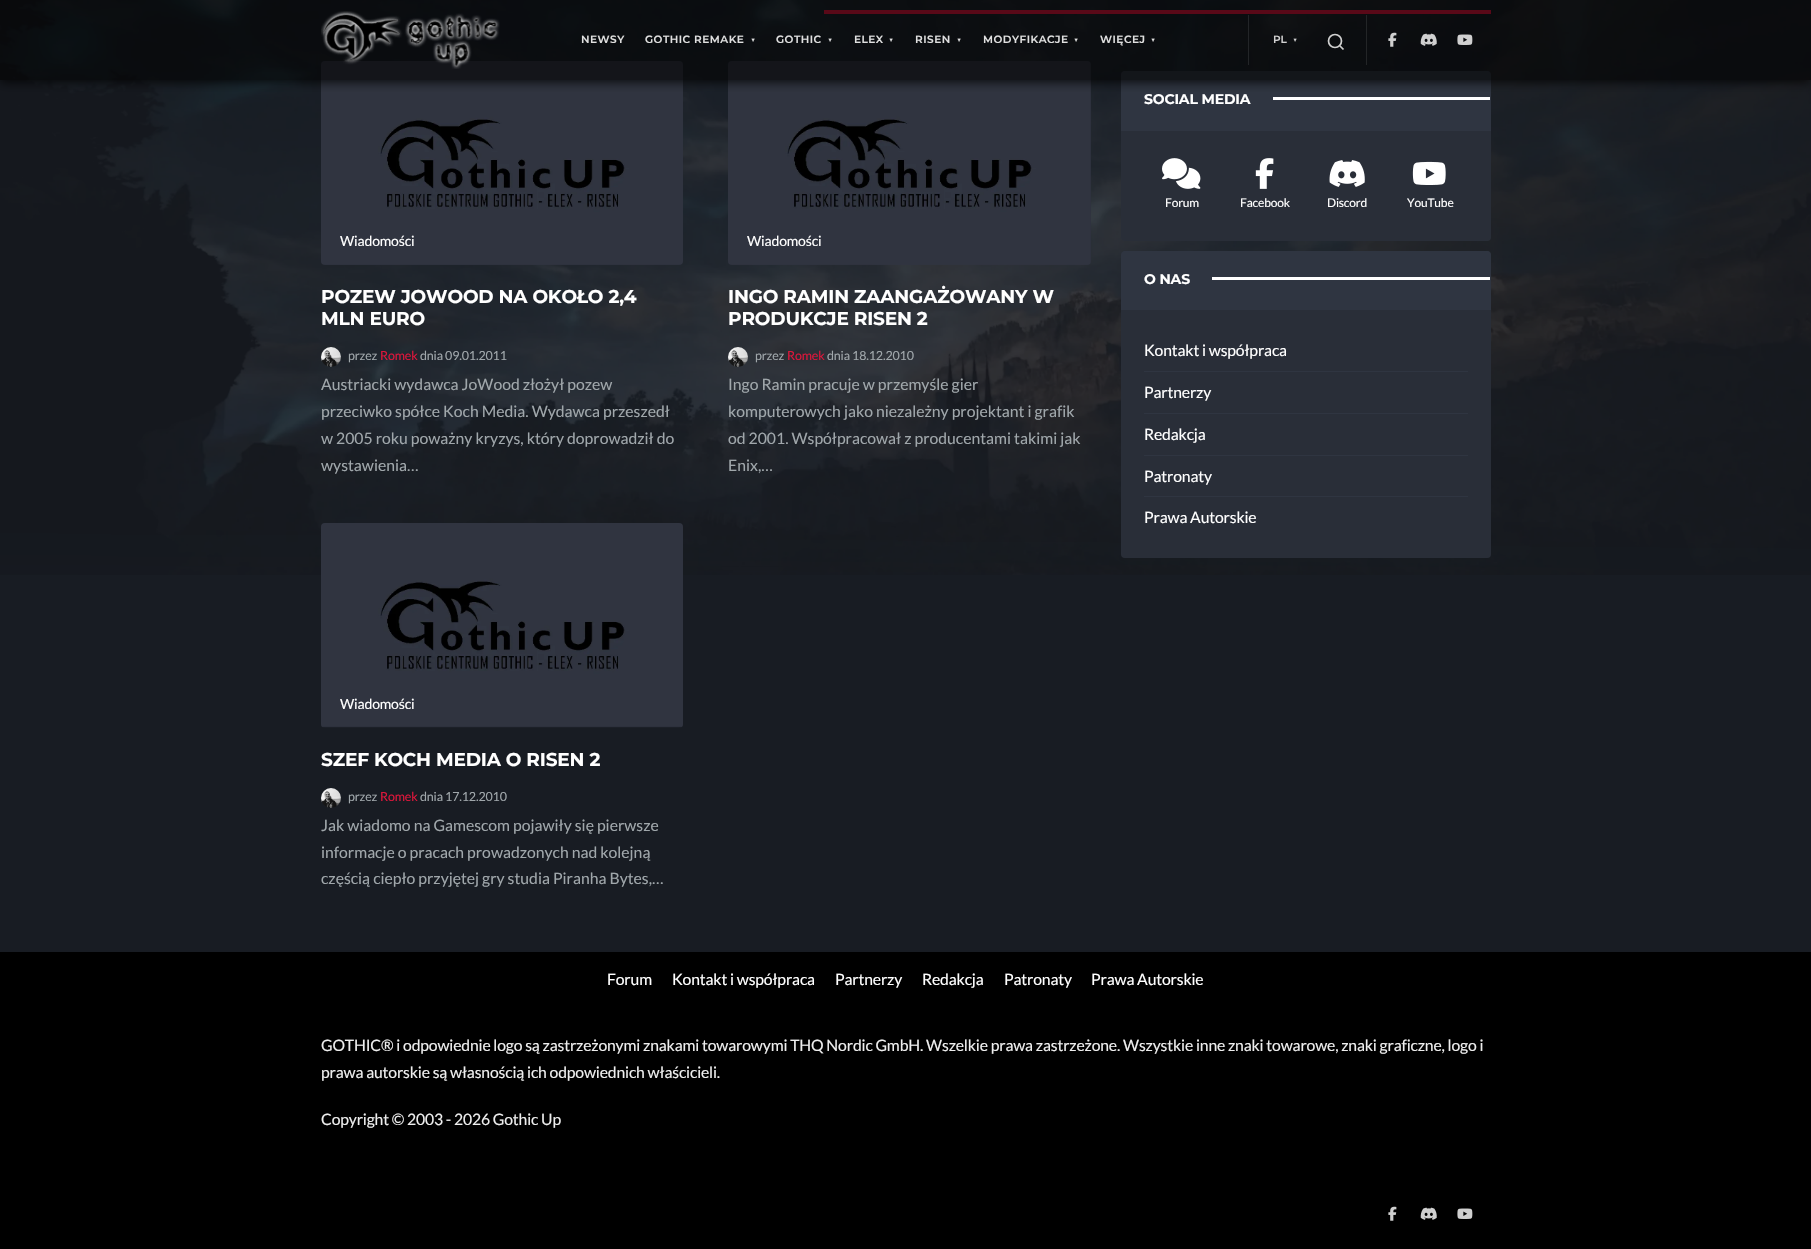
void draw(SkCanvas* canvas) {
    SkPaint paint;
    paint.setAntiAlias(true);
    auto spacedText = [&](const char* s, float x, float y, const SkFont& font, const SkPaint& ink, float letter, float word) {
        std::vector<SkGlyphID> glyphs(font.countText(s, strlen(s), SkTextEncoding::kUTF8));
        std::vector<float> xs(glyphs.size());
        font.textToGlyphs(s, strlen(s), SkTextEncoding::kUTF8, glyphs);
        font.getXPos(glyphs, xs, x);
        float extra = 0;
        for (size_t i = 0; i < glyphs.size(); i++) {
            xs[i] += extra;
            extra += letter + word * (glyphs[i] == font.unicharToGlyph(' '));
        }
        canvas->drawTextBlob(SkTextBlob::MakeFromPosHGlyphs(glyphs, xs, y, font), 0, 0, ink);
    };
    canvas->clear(0xFF181C23);
    canvas->drawImageRect(SkImages::DeferredFromEncodedData(SkData::MakeFromFileName("img1.png")), SkRect::MakeXYWH(0, 0, 1811, 575), SkSamplingOptions());
    paint.setColor(0xFFDD163B);
    canvas->drawRect(SkRect::MakeXYWH(824, 10, 667, 4), paint);
    canvas->drawImageRect(SkImages::DeferredFromEncodedData(SkData::MakeFromFileName("img6.png")), SkRect::MakeXYWH(321, 61, 362, 204), SkSamplingOptions());
    canvas->drawImageRect(SkImages::DeferredFromEncodedData(SkData::MakeFromFileName("img8.png")), SkRect::MakeXYWH(728, 61, 363, 204), SkSamplingOptions());
    paint.setColor(0xFF292E38);
    canvas->drawRoundRect(SkRect::MakeXYWH(1121, 71, 370, 170), 4, 4, paint);
    paint.setColor(0xFF2F3541);
    canvas->drawPath(SkPathBuilder().moveTo(1125, 71).lineTo(1487, 71).cubicTo(1489, 71, 1491, 73, 1491, 75).lineTo(1491, 131).lineTo(1121, 131).lineTo(1121, 75).cubicTo(1121, 73, 1123, 71, 1125, 71).close().detach(), paint);
    paint.setColor(0xFFFFFFFF);
    canvas->drawRect(SkRect::MakeXYWH(1273, 97, 217, 3), paint);
    canvas->save();
    canvas->clipRect(SkRect::MakeXYWH(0, 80, 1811, 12));
    paint.setColor(0xCC000000);
    paint.setMaskFilter(SkMaskFilter::MakeBlur(kNormal_SkBlurStyle, 5));
    canvas->drawRect(SkRect::MakeXYWH(0, 2, 1811, 80), paint);
    paint.setMaskFilter(nullptr);
    canvas->restore();
    paint.setColor(0x99000000);
    canvas->drawRect(SkRect::MakeXYWH(0, 0, 1811, 80), paint);
    canvas->drawImageRect(SkImages::DeferredFromEncodedData(SkData::MakeFromFileName("img2.png")), SkRect::MakeXYWH(321, 11, 179, 58), SkSamplingOptions());
    SkFont font1(fontMgr->matchFamilyStyle("Montserrat", SkFontStyle(600, SkFontStyle::kNormal_Width, SkFontStyle::kUpright_Slant)), 10.5f);
    font1.setSubpixel(true);
    paint.setColor(0xFFE0E0E0);
    spacedText("NEWSY", 581, 43, font1, paint, 0.5f, 0);
    spacedText("GOTHIC REMAKE", 645, 43, font1, paint, 0.5f, 0);
    SkFont font2(fontMgr->matchFamilyStyle("Montserrat", SkFontStyle(600, SkFontStyle::kNormal_Width, SkFontStyle::kUpright_Slant)), 7);
    font2.setSubpixel(true);
    spacedText("▼", 751, 42, font2, paint, 0.5f, 0);
    spacedText("GOTHIC", 776, 43, font1, paint, 0.5f, 0);
    spacedText("▼", 828, 42, font2, paint, 0.5f, 0);
    spacedText("ELEX", 854, 43, font1, paint, 0.5f, 0);
    spacedText("▼", 889, 42, font2, paint, 0.5f, 0);
    spacedText("RISEN", 915, 43, font1, paint, 0.5f, 0);
    spacedText("▼", 957, 42, font2, paint, 0.5f, 0);
    spacedText("MODYFIKACJE", 983, 43, font1, paint, 0.5f, 0);
    spacedText("▼", 1074, 42, font2, paint, 0.5f, 0);
    spacedText("WIĘCEJ", 1100, 43, font1, paint, 0.5f, 0);
    spacedText("▼", 1151, 42, font2, paint, 0.5f, 0);
    paint.setColor(0xFF232527);
    canvas->drawRect(SkRect::MakeXYWH(1366, 15, 1, 50), paint);
    paint.setColor(0xFF232528);
    canvas->drawRect(SkRect::MakeXYWH(1248, 15, 1, 50), paint);
    paint.setColor(0xFFD0D0D0);
    canvas->drawString("PL", 1273, 43, font1, paint);
    canvas->drawString("▼", 1293, 42, font2, paint);
    paint.setStyle(SkPaint::kStroke_Style);
    paint.setStrokeWidth(1.7f);
    canvas->drawCircle(1335, 41, 6.5f, paint);
    canvas->drawPath(SkPathBuilder().moveTo(1343.5f, 49.5f).lineTo(1340, 46).detach(), paint);
    canvas->drawImageRect(SkImages::DeferredFromEncodedData(SkData::MakeFromFileName("img3.png")), SkRect::MakeXYWH(1388, 32, 9, 15), SkSamplingOptions());
    canvas->drawImageRect(SkImages::DeferredFromEncodedData(SkData::MakeFromFileName("img4.png")), SkRect::MakeXYWH(1420, 33, 17, 13), SkSamplingOptions());
    canvas->drawImageRect(SkImages::DeferredFromEncodedData(SkData::MakeFromFileName("img5.png")), SkRect::MakeXYWH(1457, 34, 16, 11), SkSamplingOptions());
    SkFont font3(fontMgr->matchFamilyStyle("Lato", SkFontStyle::Normal()), 14);
    font3.setSubpixel(true);
    paint.setStyle(SkPaint::kFill_Style);
    paint.setColor(0xFFFFFFFF);
    spacedText("Wiadomości", 340, 246, font3, paint, -0.16f, 0);
    SkFont font4(fontMgr->matchFamilyStyle("Montserrat", SkFontStyle::Bold()), 18.5f);
    font4.setSubpixel(true);
    spacedText("POZEW JOWOOD NA OKOŁO 2,4", 321, 303, font4, paint, -0.16f, 0);
    spacedText("MLN EURO", 321, 325, font4, paint, -0.16f, 0);
    canvas->drawImageRect(SkImages::DeferredFromEncodedData(SkData::MakeFromFileName("img7.png")), SkRect::MakeXYWH(321, 347, 20, 20), SkSamplingOptions());
    SkFont font5(fontMgr->matchFamilyStyle("Lato", SkFontStyle::Normal()), 12.5f);
    font5.setSubpixel(true);
    paint.setColor(0xFFA0A7AB);
    spacedText("przez", 348, 360, font5, paint, -0.16f, 0);
    paint.setColor(0xFFDD163B);
    spacedText("Romek", 380, 360, font5, paint, -0.16f, 0);
    paint.setColor(0xFFA0A7AB);
    spacedText("dnia 09.01.2011", 420, 360, font5, paint, -0.16f, 0);
    SkFont font6(fontMgr->matchFamilyStyle("Lato", SkFontStyle::Normal()), 15.75f);
    font6.setSubpixel(true);
    canvas->drawString("Austriacki wydawca JoWood złożył pozew", 321, 390, font6, paint);
    canvas->drawString("przeciwko spółce Koch Media. Wydawca przeszedł", 321, 417, font6, paint);
    canvas->drawString("w 2005 roku poważny kryzys, który doprowadził do", 321, 444, font6, paint);
    canvas->drawString("wystawienia…", 321, 471, font6, paint);
    paint.setColor(0xFFFFFFFF);
    spacedText("Wiadomości", 747, 246, font3, paint, -0.16f, 0);
    spacedText("INGO RAMIN ZAANGAŻOWANY W", 728, 303, font4, paint, -0.16f, 0);
    spacedText("PRODUKCJE RISEN 2", 728, 325, font4, paint, -0.16f, 0);
    canvas->drawImageRect(SkImages::DeferredFromEncodedData(SkData::MakeFromFileName("img9.png")), SkRect::MakeXYWH(728, 347, 20, 20), SkSamplingOptions());
    paint.setColor(0xFFA0A7AB);
    spacedText("przez", 755, 360, font5, paint, -0.16f, 0);
    paint.setColor(0xFFDD163B);
    spacedText("Romek", 787, 360, font5, paint, -0.16f, 0);
    paint.setColor(0xFFA0A7AB);
    spacedText("dnia 18.12.2010", 827, 360, font5, paint, -0.16f, 0);
    canvas->drawString("Ingo Ramin pracuje w przemyśle gier", 728, 390, font6, paint);
    canvas->drawString("komputerowych jako niezależny projektant i grafik", 728, 417, font6, paint);
    canvas->drawString("od 2001. Współpracował z producentami takimi jak", 728, 444, font6, paint);
    canvas->drawString("Enix,…", 728, 471, font6, paint);
    canvas->drawImageRect(SkImages::DeferredFromEncodedData(SkData::MakeFromFileName("img10.png")), SkRect::MakeXYWH(321, 523, 362, 205), SkSamplingOptions());
    paint.setColor(0xFFFFFFFF);
    spacedText("Wiadomości", 340, 709, font3, paint, -0.16f, 0);
    spacedText("SZEF KOCH MEDIA O RISEN 2", 321, 766, font4, paint, -0.16f, 0);
    canvas->drawImageRect(SkImages::DeferredFromEncodedData(SkData::MakeFromFileName("img11.png")), SkRect::MakeXYWH(321, 788, 20, 20), SkSamplingOptions());
    paint.setColor(0xFFA0A7AB);
    spacedText("przez", 348, 801, font5, paint, -0.16f, 0);
    paint.setColor(0xFFDD163B);
    spacedText("Romek", 380, 801, font5, paint, -0.16f, 0);
    paint.setColor(0xFFA0A7AB);
    spacedText("dnia 17.12.2010", 420, 801, font5, paint, -0.16f, 0);
    canvas->drawString("Jak wiadomo na Gamescom pojawiły się pierwsze", 321, 831, font6, paint);
    canvas->drawString("informacje o pracach prowadzonych nad kolejną", 321, 858, font6, paint);
    canvas->drawString("częścią ciepło przyjętej gry studia Piranha Bytes,…", 321, 884, font6, paint);
    SkFont font7(fontMgr->matchFamilyStyle("Montserrat", SkFontStyle::Bold()), 14);
    font7.setSubpixel(true);
    paint.setColor(0xFFFFFFFF);
    spacedText("SOCIAL MEDIA", 1144, 104, font7, paint, -0.16f, 0);
    canvas->drawImageRect(SkImages::DeferredFromEncodedData(SkData::MakeFromFileName("img12.png")), SkRect::MakeXYWH(1162, 158, 39, 31), SkSamplingOptions());
    SkFont font8(fontMgr->matchFamilyStyle("Lato", SkFontStyle::Normal()), 12);
    font8.setSubpixel(true);
    spacedText("Forum", 1165, 207, font8, paint, -0.16f, 0);
    canvas->drawImageRect(SkImages::DeferredFromEncodedData(SkData::MakeFromFileName("img13.png")), SkRect::MakeXYWH(1255, 158, 19, 31), SkSamplingOptions());
    spacedText("Facebook", 1240, 207, font8, paint, -0.16f, 0);
    canvas->drawImageRect(SkImages::DeferredFromEncodedData(SkData::MakeFromFileName("img14.png")), SkRect::MakeXYWH(1329, 160, 36, 27), SkSamplingOptions());
    spacedText("Discord", 1327, 207, font8, paint, -0.16f, 0);
    canvas->drawImageRect(SkImages::DeferredFromEncodedData(SkData::MakeFromFileName("img15.png")), SkRect::MakeXYWH(1412, 161, 34, 24), SkSamplingOptions());
    spacedText("YouTube", 1407, 207, font8, paint, -0.16f, 0);
    paint.setColor(0xFF292E38);
    canvas->drawRoundRect(SkRect::MakeXYWH(1121, 251, 370, 307), 4, 4, paint);
    paint.setColor(0xFF2F3541);
    canvas->drawPath(SkPathBuilder().moveTo(1125, 251).lineTo(1487, 251).cubicTo(1489, 251, 1491, 253, 1491, 255).lineTo(1491, 310).lineTo(1121, 310).lineTo(1121, 255).cubicTo(1121, 253, 1123, 251, 1125, 251).close().detach(), paint);
    paint.setColor(0xFFFFFFFF);
    spacedText("O NAS", 1144, 284, font7, paint, -0.16f, 0);
    canvas->drawRect(SkRect::MakeXYWH(1212, 277, 278, 3), paint);
    spacedText("Kontakt i współpraca", 1144, 356, font6, paint, -0.16f, 0);
    paint.setColor(0xFF2F3541);
    canvas->drawRect(SkRect::MakeXYWH(1144, 371, 324, 1), paint);
    paint.setColor(0xFFFFFFFF);
    spacedText("Partnerzy", 1144, 398, font6, paint, -0.16f, 0);
    paint.setColor(0xFF2F3541);
    canvas->drawRect(SkRect::MakeXYWH(1144, 413, 324, 1), paint);
    paint.setColor(0xFFFFFFFF);
    spacedText("Redakcja", 1144, 440, font6, paint, -0.16f, 0);
    paint.setColor(0xFF2F3541);
    canvas->drawRect(SkRect::MakeXYWH(1144, 455, 324, 1), paint);
    paint.setColor(0xFFFFFFFF);
    spacedText("Patronaty", 1144, 482, font6, paint, -0.16f, 0);
    paint.setColor(0xFF2F3541);
    canvas->drawRect(SkRect::MakeXYWH(1144, 496, 324, 1), paint);
    paint.setColor(0xFFFFFFFF);
    spacedText("Prawa Autorskie", 1144, 523, font6, paint, -0.16f, 0);
    paint.setColor(0xFF000000);
    canvas->drawRect(SkRect::MakeXYWH(0, 952, 1811, 297), paint);
    paint.setColor(0xFFFFFFFF);
    spacedText("Forum", 607, 985, font6, paint, -0.16f, 0);
    spacedText("Kontakt i współpraca", 672, 985, font6, paint, -0.16f, 0);
    spacedText("Partnerzy", 835, 985, font6, paint, -0.16f, 0);
    spacedText("Redakcja", 922, 985, font6, paint, -0.16f, 0);
    spacedText("Patronaty", 1004, 985, font6, paint, -0.16f, 0);
    spacedText("Prawa Autorskie", 1091, 985, font6, paint, -0.16f, 0);
    paint.setColor(0xFFEEEEEE);
    spacedText("GOTHIC® i odpowiednie logo są zastrzeżonymi znakami towarowymi THQ Nordic GmbH. Wszelkie prawa zastrzeżone. Wszystkie inne znaki towarowe, znaki graficzne, logo i", 321, 1051, font6, paint, -0.16f, 0);
    spacedText("prawa autorskie są własnością ich odpowiednich właścicieli.", 321, 1078, font6, paint, -0.16f, 0);
    spacedText("Copyright © 2003 - 2026 Gothic Up", 321, 1125, font6, paint, -0.16f, 0);
    canvas->drawImageRect(SkImages::DeferredFromEncodedData(SkData::MakeFromFileName("img16.png")), SkRect::MakeXYWH(1388, 1206, 9, 15), SkSamplingOptions());
    canvas->drawImageRect(SkImages::DeferredFromEncodedData(SkData::MakeFromFileName("img17.png")), SkRect::MakeXYWH(1420, 1207, 17, 13), SkSamplingOptions());
    canvas->drawImageRect(SkImages::DeferredFromEncodedData(SkData::MakeFromFileName("img18.png")), SkRect::MakeXYWH(1457, 1208, 16, 11), SkSamplingOptions());
}
